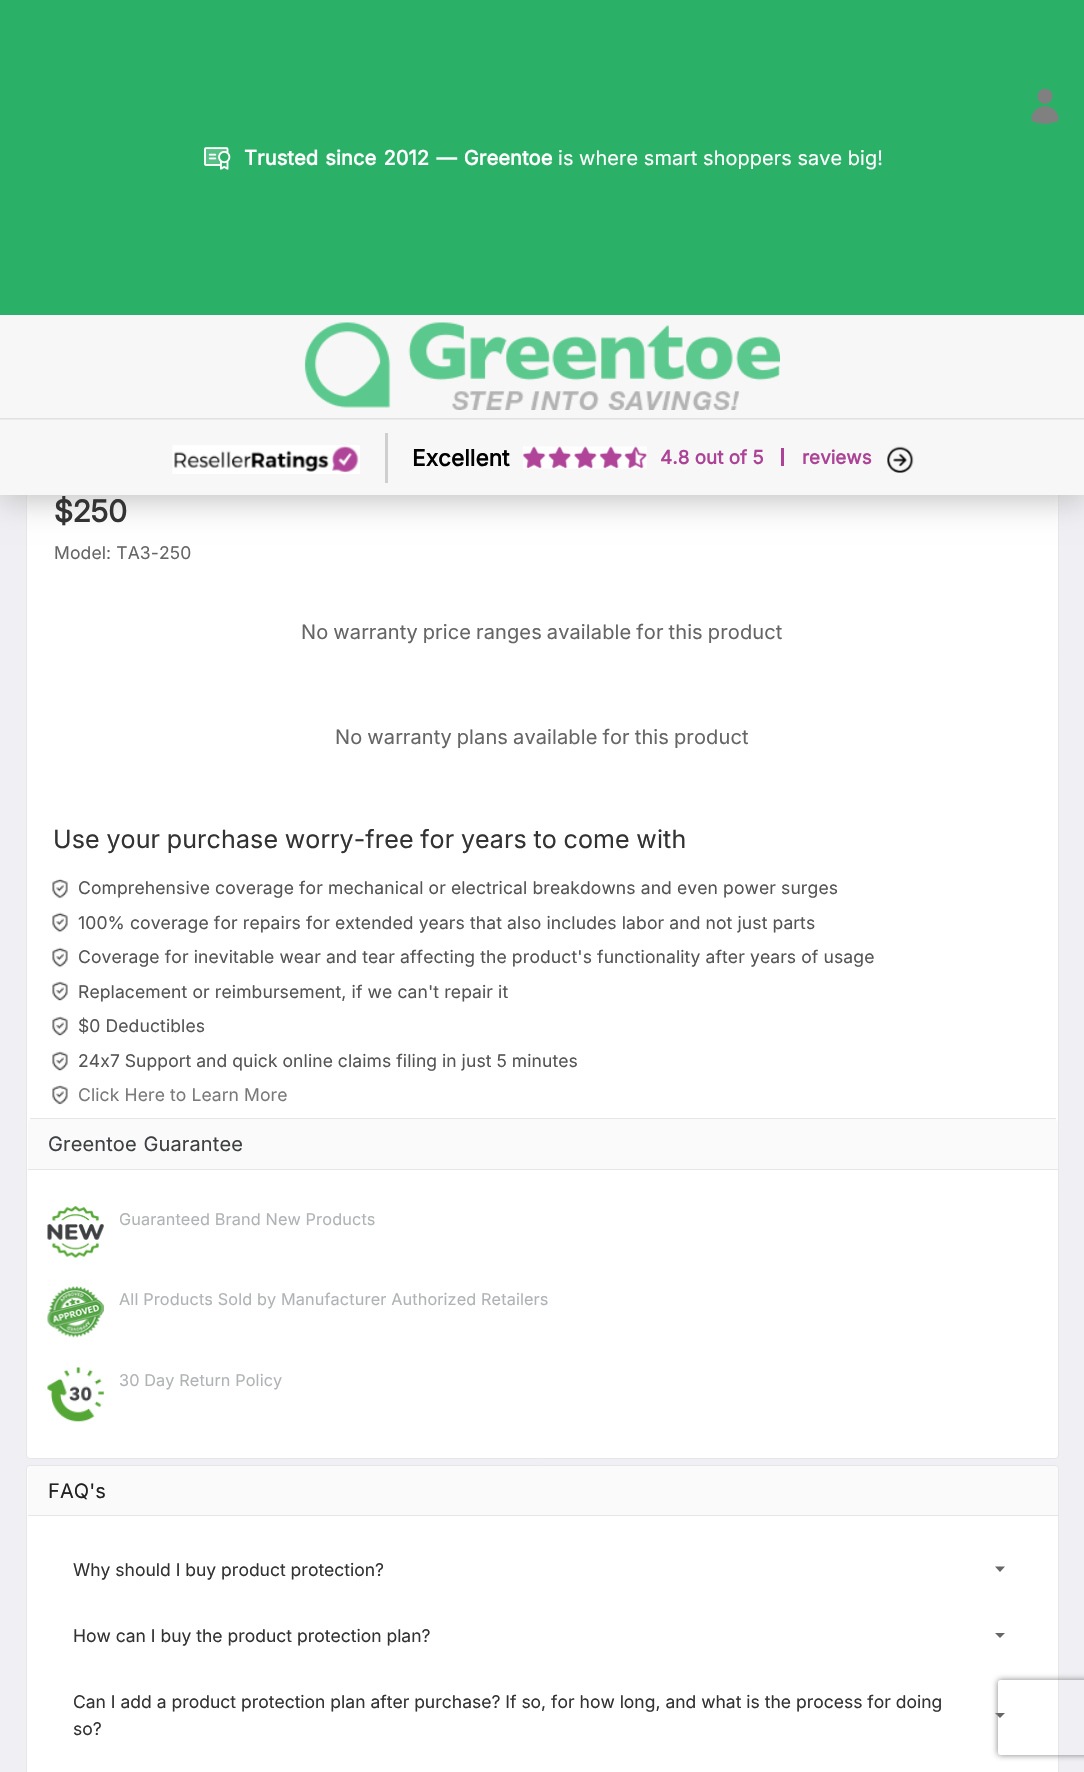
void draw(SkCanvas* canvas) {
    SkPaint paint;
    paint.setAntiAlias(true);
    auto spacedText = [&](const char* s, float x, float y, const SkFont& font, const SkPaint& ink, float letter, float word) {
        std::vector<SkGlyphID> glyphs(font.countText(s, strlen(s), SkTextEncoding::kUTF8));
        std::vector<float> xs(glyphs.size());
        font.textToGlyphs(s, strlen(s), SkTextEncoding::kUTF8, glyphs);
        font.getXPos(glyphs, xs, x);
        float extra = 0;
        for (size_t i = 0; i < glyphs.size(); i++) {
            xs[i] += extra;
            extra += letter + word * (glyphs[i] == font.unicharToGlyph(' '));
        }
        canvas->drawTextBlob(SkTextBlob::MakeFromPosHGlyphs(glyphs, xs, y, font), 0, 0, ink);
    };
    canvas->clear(0xFFEFEFF4);
    paint.setColor(0xFFFFFFFF);
    canvas->drawRoundRect(SkRect::MakeXYWH(26.5f, 381.5f, 1032, 1077), 3.5f, 3.5f, paint);
    paint.setStyle(SkPaint::kStroke_Style);
    paint.setStrokeWidth(1);
    paint.setColor(0xFFE6E6E6);
    canvas->drawRoundRect(SkRect::MakeXYWH(26.5f, 381.5f, 1032, 1077), 3.5f, 3.5f, paint);
    paint.setStyle(SkPaint::kFill_Style);
    paint.setColor(0xFFBDBDBD);
    paint.setMaskFilter(SkMaskFilter::MakeBlur(kNormal_SkBlurStyle, 15.5f));
    canvas->drawRect(SkRect::MakeXYWH(0, 4, 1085, 495), paint);
    paint.setMaskFilter(nullptr);
    paint.setColor(0xFFF8F7F7);
    canvas->drawRect(SkRect::MakeXYWH(0, 315, 1084, 180), paint);
    paint.setColor(0xFF2BB067);
    canvas->drawRect(SkRect::MakeXYWH(0, 0, 1084, 315), paint);
    canvas->drawImageRect(SkImages::DeferredFromEncodedData(SkData::MakeFromFileName("img1.png")), SkRect::MakeXYWH(1031, 88, 28, 36), SkSamplingOptions());
    canvas->drawImageRect(SkImages::DeferredFromEncodedData(SkData::MakeFromFileName("img2.png")), SkRect::MakeXYWH(204, 147, 27, 23), SkSamplingOptions());
    SkFont font1(fontMgr->matchFamilyStyle("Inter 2", SkFontStyle::Bold()), 20);
    font1.setSubpixel(true);
    paint.setColor(0xFFFFFFFF);
    spacedText("Trusted since 2012 — Greentoe", 244, 165, font1, paint, 0.12f, 1.5f);
    SkFont font2(fontMgr->matchFamilyStyle("Inter 2", SkFontStyle::Normal()), 20);
    font2.setSubpixel(true);
    spacedText("is where smart shoppers save big!", 558, 165, font2, paint, 0.12f, 0);
    paint.setColor(0xFFE2E1E1);
    canvas->drawRect(SkRect::MakeXYWH(0, 418, 1084, 1), paint);
    canvas->drawImageRect(SkImages::DeferredFromEncodedData(SkData::MakeFromFileName("img3.png")), SkRect::MakeXYWH(304, 322, 476, 88), SkSamplingOptions());
    paint.setColor(0xFFEBEBEB);
    canvas->drawRect(SkRect::MakeXYWH(0, 419, 1084, 1), paint);
    canvas->drawImageRect(SkImages::DeferredFromEncodedData(SkData::MakeFromFileName("img4.png")), SkRect::MakeXYWH(172, 445, 188, 29), SkSamplingOptions());
    paint.setColor(0xFFCFCFCF);
    canvas->drawRect(SkRect::MakeXYWH(385, 433, 3, 50), paint);
    SkFont font3(fontMgr->matchFamilyStyle("Inter 2", SkFontStyle::Bold()), 22.5f);
    font3.setSubpixel(true);
    paint.setColor(0xFF000000);
    spacedText("Excellent", 412, 466, font3, paint, 0.12f, 0);
    canvas->drawImageRect(SkImages::DeferredFromEncodedData(SkData::MakeFromFileName("img5.png")), SkRect::MakeXYWH(523, 446, 124, 23), SkSamplingOptions());
    SkFont font4(fontMgr->matchFamilyStyle("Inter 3", SkFontStyle::Bold()), 18.75f);
    font4.setSubpixel(true);
    paint.setColor(0xFFAC4396);
    spacedText("4.8 out of 5", 660, 464, font4, paint, 0.12f, 0);
    canvas->drawRect(SkRect::MakeXYWH(781, 448, 3, 18), paint);
    spacedText("reviews", 802, 464, font4, paint, 0.12f, 0);
    canvas->drawImageRect(SkImages::DeferredFromEncodedData(SkData::MakeFromFileName("img6.png")), SkRect::MakeXYWH(887, 446, 27, 27), SkSamplingOptions());
    SkFont font5(fontMgr->matchFamilyStyle("Inter", SkFontStyle::Bold()), 30);
    font5.setSubpixel(true);
    paint.setColor(0xFF333333);
    spacedText("$250", 54, 522, font5, paint, 0.12f, 0);
    SkFont font6(fontMgr->matchFamilyStyle("Inter", SkFontStyle::Normal()), 17.5f);
    font6.setSubpixel(true);
    paint.setColor(0xFF666666);
    spacedText("Model: TA3-250", 54, 559, font6, paint, 0.12f, 0);
    SkFont font7(fontMgr->matchFamilyStyle("Inter", SkFontStyle::Normal()), 20);
    font7.setSubpixel(true);
    spacedText("No warranty price ranges available for this product", 301, 639, font7, paint, 0.12f, -0.75f);
    spacedText("No warranty plans available for this product", 335, 744, font7, paint, 0.12f, -0.75f);
    SkFont font8(fontMgr->matchFamilyStyle("Inter", SkFontStyle::Normal()), 25);
    font8.setSubpixel(true);
    paint.setColor(0xFF333333);
    spacedText("Use your purchase worry-free for years to come with", 53, 848, font8, paint, 0.12f, -0.5f);
    canvas->drawImageRect(SkImages::DeferredFromEncodedData(SkData::MakeFromFileName("img7.png")), SkRect::MakeXYWH(52, 878, 16, 21), SkSamplingOptions());
    paint.setColor(0xFF555555);
    spacedText("Comprehensive coverage for mechanical or electrical breakdowns and even power surges", 78, 894, font6, paint, 0.12f, 0);
    canvas->drawImageRect(SkImages::DeferredFromEncodedData(SkData::MakeFromFileName("img8.png")), SkRect::MakeXYWH(52, 912, 16, 21), SkSamplingOptions());
    spacedText("100% coverage for repairs for extended years that also includes labor and not just parts", 78, 929, font6, paint, 0.12f, 0);
    canvas->drawImageRect(SkImages::DeferredFromEncodedData(SkData::MakeFromFileName("img8.png")), SkRect::MakeXYWH(52, 947, 16, 21), SkSamplingOptions());
    spacedText("Coverage for inevitable wear and tear affecting the product's functionality after years of usage", 78, 963, font6, paint, 0.12f, 0);
    canvas->drawImageRect(SkImages::DeferredFromEncodedData(SkData::MakeFromFileName("img9.png")), SkRect::MakeXYWH(52, 981, 16, 20), SkSamplingOptions());
    spacedText("Replacement or reimbursement, if we can't repair it", 78, 998, font6, paint, 0.12f, 0);
    canvas->drawImageRect(SkImages::DeferredFromEncodedData(SkData::MakeFromFileName("img9.png")), SkRect::MakeXYWH(52, 1016, 16, 20), SkSamplingOptions());
    spacedText("$0 Deductibles", 78, 1032, font6, paint, 0.12f, 0);
    canvas->drawImageRect(SkImages::DeferredFromEncodedData(SkData::MakeFromFileName("img9.png")), SkRect::MakeXYWH(52, 1051, 16, 20), SkSamplingOptions());
    spacedText("24x7 Support and quick online claims filing in just 5 minutes", 78, 1067, font6, paint, 0.12f, -0.25f);
    canvas->drawImageRect(SkImages::DeferredFromEncodedData(SkData::MakeFromFileName("img10.png")), SkRect::MakeXYWH(52, 1085, 16, 20), SkSamplingOptions());
    paint.setColor(0xFF7A7A7A);
    spacedText("Click Here to Learn More", 78, 1101, font6, paint, 0.12f, 0);
    paint.setColor(0xFFE6E6E6);
    canvas->drawRect(SkRect::MakeXYWH(30, 1118, 1026, 1), paint);
    paint.setColor(0xFFFAFAFA);
    canvas->drawPath(SkPathBuilder().moveTo(32, 1119).lineTo(1054, 1119).cubicTo(1056, 1119, 1058, 1121, 1058, 1123).lineTo(1058, 1170).lineTo(28, 1170).lineTo(28, 1123).cubicTo(28, 1121, 30, 1119, 32, 1119).close().detach(), paint);
    paint.setColor(0xFFE6E6E6);
    canvas->drawRect(SkRect::MakeXYWH(28, 1169, 1030, 1), paint);
    paint.setColor(0xFF3E4042);
    spacedText("Greentoe Guarantee", 48, 1151, font7, paint, 0.12f, 1);
    canvas->drawImageRect(SkImages::DeferredFromEncodedData(SkData::MakeFromFileName("img11.png")), SkRect::MakeXYWH(47, 1206, 57, 52), SkSamplingOptions());
    SkFont font9(fontMgr->matchFamilyStyle("Inter", SkFontStyle::Normal()), 16.25f);
    font9.setSubpixel(true);
    paint.setColor(0xFFB0B3B5);
    spacedText("Guaranteed Brand New Products", 119, 1225, font9, paint, 0.12f, 0);
    canvas->drawImageRect(SkImages::DeferredFromEncodedData(SkData::MakeFromFileName("img12.png")), SkRect::MakeXYWH(47, 1286, 57, 52), SkSamplingOptions());
    spacedText("All Products Sold by Manufacturer Authorized Retailers", 119, 1305, font9, paint, 0.12f, 0);
    canvas->drawImageRect(SkImages::DeferredFromEncodedData(SkData::MakeFromFileName("img13.png")), SkRect::MakeXYWH(47, 1367, 57, 55), SkSamplingOptions());
    spacedText("30 Day Return Policy", 119, 1386, font9, paint, 0.12f, 0);
    paint.setColor(0xFFFFFFFF);
    canvas->drawRoundRect(SkRect::MakeXYWH(26.5f, 1465.5f, 1032, 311), 3.5f, 3.5f, paint);
    paint.setStyle(SkPaint::kStroke_Style);
    paint.setColor(0xFFE6E6E6);
    canvas->drawRoundRect(SkRect::MakeXYWH(26.5f, 1465.5f, 1032, 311), 3.5f, 3.5f, paint);
    paint.setStyle(SkPaint::kFill_Style);
    paint.setColor(0xFFFAFAFA);
    canvas->drawPath(SkPathBuilder().moveTo(32, 1466).lineTo(1054, 1466).cubicTo(1056, 1466, 1058, 1468, 1058, 1470).lineTo(1058, 1516).lineTo(28, 1516).lineTo(28, 1470).cubicTo(28, 1468, 30, 1466, 32, 1466).close().detach(), paint);
    paint.setColor(0xFFE6E6E6);
    canvas->drawRect(SkRect::MakeXYWH(28, 1515, 1030, 1), paint);
    paint.setColor(0xFF222222);
    spacedText("FAQ's", 48, 1498, font7, paint, 0.12f, 0);
    paint.setColor(0xFF333333);
    canvas->drawString("Why should I buy product protection?", 73, 1576, font6, paint);
    paint.setColor(0xFF666666);
    canvas->drawPath(SkPathBuilder().moveTo(995, 1566.5f).lineTo(1000, 1572).lineTo(1005, 1566.5f).close().detach(), paint);
    paint.setColor(0xFF333333);
    canvas->drawString("How can I buy the product protection plan?", 73, 1642, font6, paint);
    paint.setColor(0xFF666666);
    canvas->drawPath(SkPathBuilder().moveTo(995, 1633).lineTo(1000, 1638).lineTo(1005, 1633).close().detach(), paint);
    paint.setColor(0xFF333333);
    canvas->drawString("Can I add a product protection plan after purchase? If so, for how long, and what is the process for doing", 73, 1708, font6, paint);
    canvas->drawString("so?", 73, 1735, font6, paint);
    paint.setColor(0xFF666666);
    canvas->drawPath(SkPathBuilder().moveTo(995, 1713).lineTo(1000, 1718).lineTo(1005, 1713).close().detach(), paint);
    canvas->save();
    canvas->clipPath(SkPathBuilder(SkPathFillType::kEvenOdd).moveTo(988, 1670).lineTo(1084, 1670).lineTo(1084, 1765).lineTo(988, 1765).close().moveTo(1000.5f, 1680).lineTo(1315.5f, 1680).cubicTo(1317, 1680, 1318, 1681, 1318, 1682.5f).lineTo(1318, 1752.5f).cubicTo(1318, 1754, 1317, 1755, 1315.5f, 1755).lineTo(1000.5f, 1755).cubicTo(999, 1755, 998, 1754, 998, 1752.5f).lineTo(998, 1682.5f).cubicTo(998, 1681, 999, 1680, 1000.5f, 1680).close().detach(), true);
    paint.setColor(0xFF808080);
    paint.setMaskFilter(SkMaskFilter::MakeBlur(kNormal_SkBlurStyle, 3));
    canvas->drawRoundRect(SkRect::MakeXYWH(998, 1680, 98, 75), 2.5f, 2.5f, paint);
    paint.setMaskFilter(nullptr);
    canvas->restore();
}
